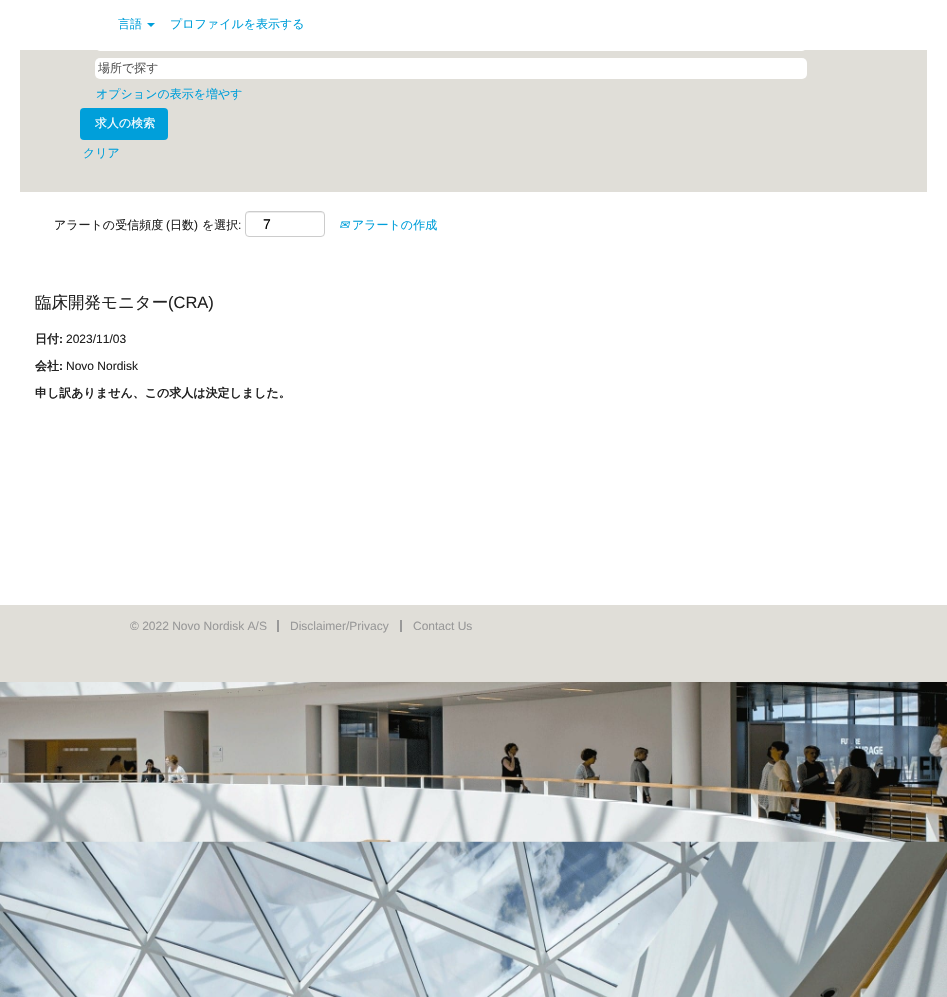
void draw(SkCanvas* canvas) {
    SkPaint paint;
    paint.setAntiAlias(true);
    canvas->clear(0xFFFFFFFF);
    canvas->drawImageRect(SkImages::DeferredFromEncodedData(SkData::MakeFromFileName("img1.png")), SkRect::MakeXYWH(0, 682, 947, 315), SkSamplingOptions());
    SkFont font1(fontMgr->matchFamilyStyle("WenQuanYi Zen Hei", SkFontStyle(500, SkFontStyle::kNormal_Width, SkFontStyle::kUpright_Slant)), 12);
    font1.setSubpixel(true);
    paint.setColor(0xFF009FDA);
    canvas->drawString("言語", 118, 28, font1, paint);
    canvas->drawPath(SkPathBuilder().moveTo(147, 23).lineTo(155, 23).lineTo(151, 27).close().detach(), paint);
    paint.setColor(0xFFE0DED8);
    canvas->drawRect(SkRect::MakeXYWH(20, 50, 907, 142), paint);
    paint.setColor(0xFFFFFFFF);
    canvas->drawRoundRect(SkRect::MakeXYWH(95, 30, 712, 21), 5, 5, paint);
    paint.setColor(0xFF009FDA);
    canvas->drawString("プロファイルを表示する", 170, 28, font1, paint);
    paint.setColor(0xFFFFFFFF);
    canvas->drawRoundRect(SkRect::MakeXYWH(95, 58, 712, 21), 5, 5, paint);
    paint.setColor(0xFF595959);
    canvas->drawString("場所で探す", 98, 72, font1, paint);
    paint.setColor(0xFF009FDA);
    canvas->drawString("オプションの表示を増やす", 96, 98, font1, paint);
    canvas->drawRoundRect(SkRect::MakeXYWH(80, 108, 88, 32), 4, 4, paint);
    paint.setColor(0xFFFFFFFF);
    canvas->drawString("求人の検索", 95, 127, font1, paint);
    paint.setColor(0xFF009FDA);
    canvas->drawString("クリア", 83, 157, font1, paint);
    paint.setColor(0xFF222222);
    canvas->drawString("アラートの受信頻度", 54, 229, font1, paint);
    SkFont font2(fontMgr->matchFamilyStyle("Liberation Sans", SkFontStyle::Normal()), 12);
    font2.setSubpixel(true);
    canvas->drawString("(", 166, 229, font2, paint);
    canvas->drawString("日数", 170, 229, font1, paint);
    canvas->drawString(")", 194, 229, font2, paint);
    canvas->drawString("を選択", 202, 229, font1, paint);
    canvas->drawString(":", 238, 229, font2, paint);
    paint.setColor(0xFFECECEC);
    canvas->drawPath(SkPathBuilder().moveTo(249, 213).lineTo(321, 213).cubicTo(323, 213, 324, 214, 324, 216).cubicTo(324, 209, 313, 212, 309, 212).lineTo(261, 212).cubicTo(257, 212, 246, 209, 246, 216).cubicTo(246, 214, 247, 213, 249, 213).close().detach(), paint);
    paint.setStyle(SkPaint::kStroke_Style);
    paint.setStrokeWidth(1);
    paint.setColor(0xFFCCCCCC);
    canvas->drawRoundRect(SkRect::MakeXYWH(245.5f, 211.5f, 79, 25), 3.5f, 3.5f, paint);
    SkFont font3(fontMgr->matchFamilyStyle("Liberation Sans", SkFontStyle::Normal()), 14);
    font3.setSubpixel(true);
    paint.setStyle(SkPaint::kFill_Style);
    paint.setColor(0xFF000000);
    canvas->drawString("7", 263, 229, font3, paint);
    SkFont font4(fontMgr->matchFamilyStyle("DejaVu Sans", SkFontStyle::Italic()), 12);
    font4.setSubpixel(true);
    paint.setColor(0xFF009FDA);
    canvas->drawString("✉", 339, 229, font4, paint);
    canvas->drawString("アラートの作成", 352, 229, font1, paint);
    SkFont font5(fontMgr->matchFamilyStyle("WenQuanYi Zen Hei", SkFontStyle(500, SkFontStyle::kNormal_Width, SkFontStyle::kUpright_Slant)), 16.5f);
    font5.setSubpixel(true);
    paint.setColor(0xFF222222);
    canvas->drawString("臨床開発モニター", 35, 308, font5, paint);
    SkFont font6(fontMgr->matchFamilyStyle("Liberation Sans", SkFontStyle::Normal()), 16.5f);
    font6.setSubpixel(true);
    canvas->drawString("(CRA)", 168, 308, font6, paint);
    SkFont font7(fontMgr->matchFamilyStyle("WenQuanYi Zen Hei", SkFontStyle::Bold()), 12);
    font7.setSubpixel(true);
    canvas->drawString("日付", 35, 343, font7, paint);
    SkFont font8(fontMgr->matchFamilyStyle("Liberation Sans", SkFontStyle::Bold()), 12);
    font8.setSubpixel(true);
    canvas->drawString(":", 59, 343, font8, paint);
    canvas->drawString("2023/11/03", 66, 343, font2, paint);
    canvas->drawString("会社", 35, 370, font7, paint);
    canvas->drawString(":", 59, 370, font8, paint);
    canvas->drawString("Novo Nordisk", 66, 370, font2, paint);
    canvas->drawString("申し訳ありません、この求人は決定しました。", 35, 397, font7, paint);
    paint.setColor(0xFFE0DED8);
    canvas->drawRect(SkRect::MakeXYWH(0, 605, 947, 77), paint);
    paint.setColor(0xFF999999);
    canvas->drawRect(SkRect::MakeXYWH(277, 620, 2, 12), paint);
    canvas->drawString("© 2022 Novo Nordisk A/S", 130, 630, font2, paint);
    canvas->drawRect(SkRect::MakeXYWH(400, 620, 2, 12), paint);
    canvas->drawString("Disclaimer/Privacy", 290, 630, font2, paint);
    canvas->drawString("Contact Us", 413, 630, font2, paint);
}
